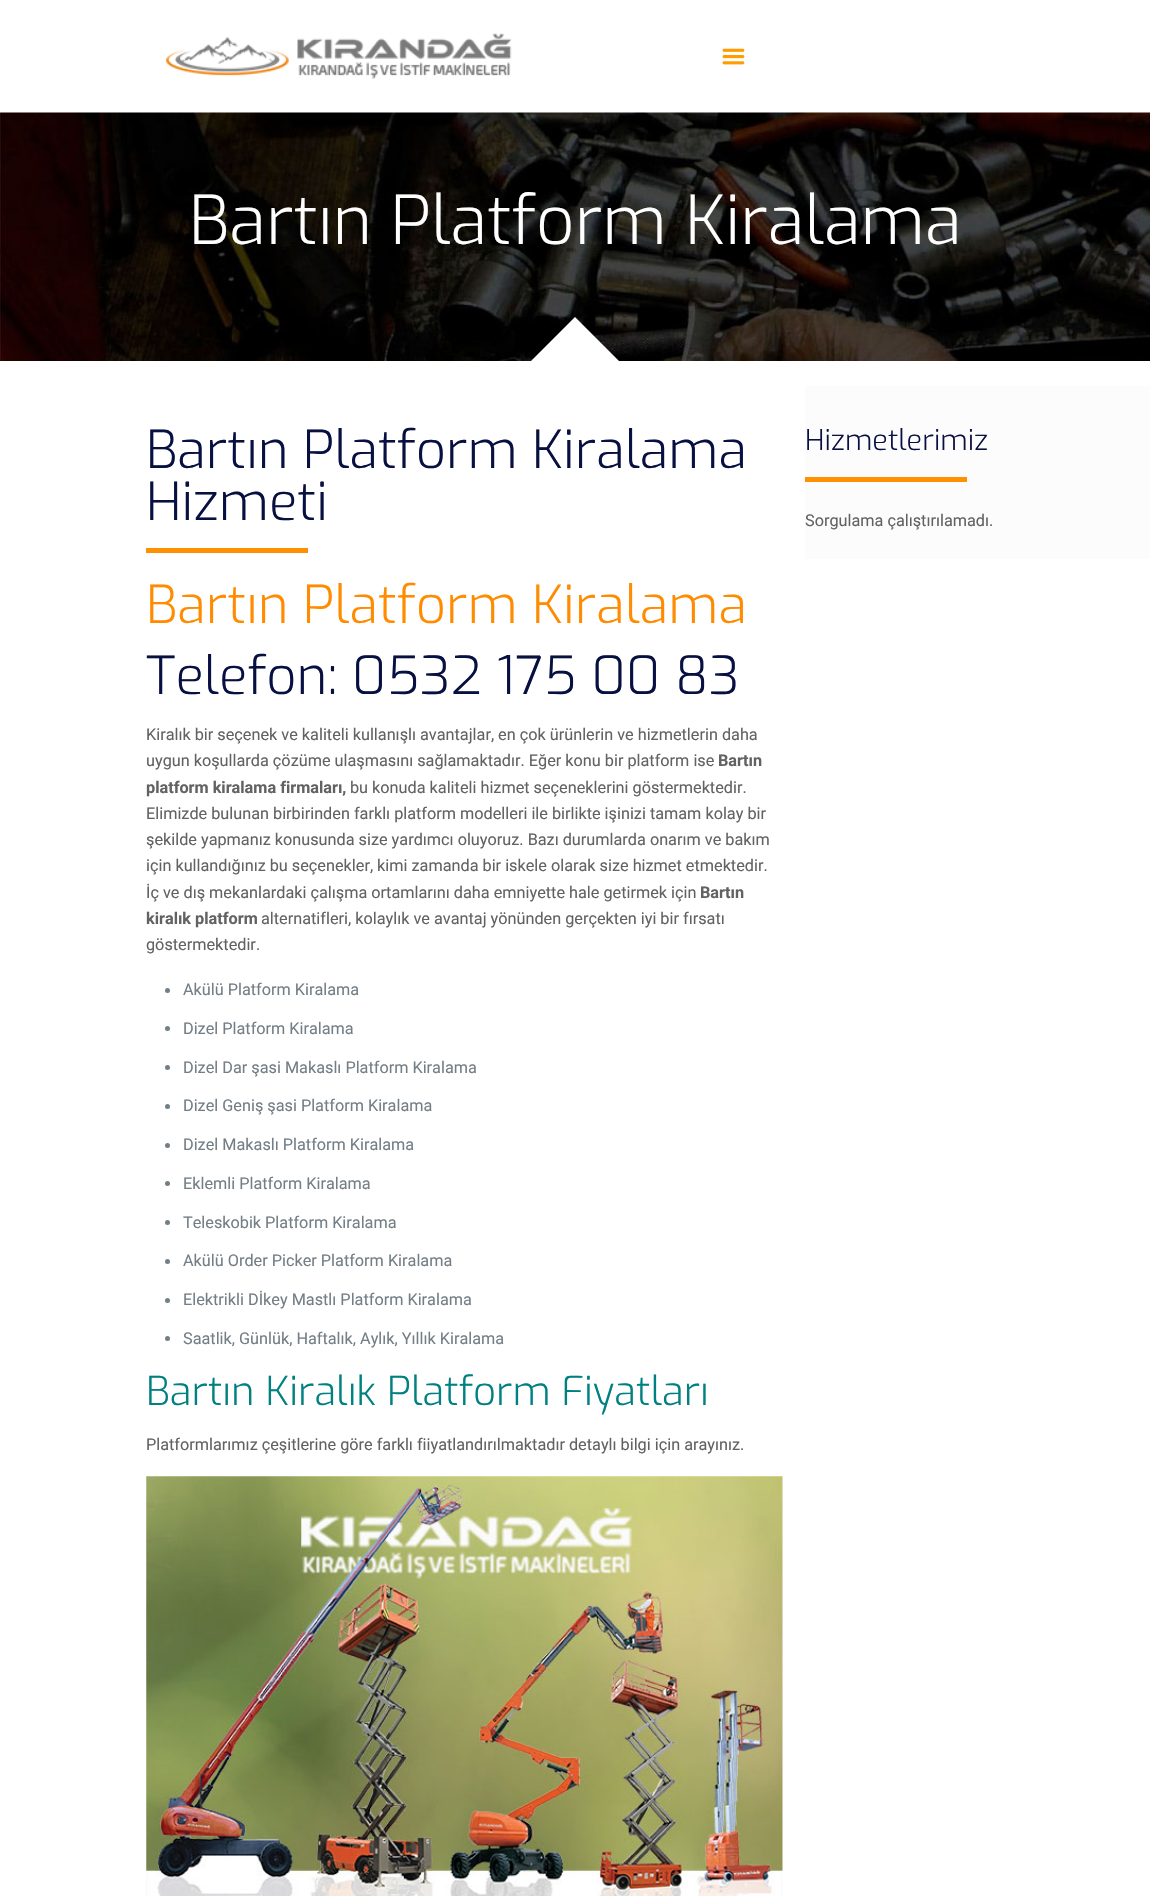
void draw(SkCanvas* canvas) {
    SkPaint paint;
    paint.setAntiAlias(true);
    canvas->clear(0xFFFFFFFF);
    canvas->drawImageRect(SkImages::DeferredFromEncodedData(SkData::MakeFromFileName("img1.png")), SkRect::MakeXYWH(166, 33, 346, 46), SkSamplingOptions());
    canvas->drawImageRect(SkImages::DeferredFromEncodedData(SkData::MakeFromFileName("img2.png")), SkRect::MakeXYWH(722, 48, 23, 17), SkSamplingOptions());
    canvas->drawImageRect(SkImages::DeferredFromEncodedData(SkData::MakeFromFileName("img3.png")), SkRect::MakeXYWH(0, 112, 1150, 249), SkSamplingOptions());
    SkFont font1(fontMgr->matchFamilyStyle("Exo", SkFontStyle(300, SkFontStyle::kNormal_Width, SkFontStyle::kUpright_Slant)), 67.5f);
    font1.setSubpixel(true);
    paint.setColor(0xFFFFFFFF);
    canvas->drawString("Bartın Platform Kiralama", 189, 244, font1, paint);
    canvas->drawPath(SkPathBuilder().moveTo(575, 317).lineTo(619, 361).lineTo(575, 405).lineTo(531, 361).close().detach(), paint);
    SkFont font2(fontMgr->matchFamilyStyle("Exo", SkFontStyle(300, SkFontStyle::kNormal_Width, SkFontStyle::kUpright_Slant)), 52.5f);
    font2.setSubpixel(true);
    paint.setColor(0xFF071041);
    canvas->drawString("Bartın Platform Kiralama", 146, 468, font2, paint);
    canvas->drawString("Hizmeti", 146, 520, font2, paint);
    paint.setColor(0xFFFF9000);
    canvas->drawRect(SkRect::MakeXYWH(146, 548, 162, 5), paint);
    paint.setColor(0xFFFF8C00);
    canvas->drawString("Bartın Platform Kiralama", 146, 623, font2, paint);
    paint.setColor(0xFF071041);
    canvas->drawString("Telefon: 0532 175 00 83", 146, 694, font2, paint);
    SkFont font3(fontMgr->matchFamilyStyle("Roboto", SkFontStyle::Normal()), 16.25f);
    font3.setSubpixel(true);
    paint.setColor(0xFF626262);
    canvas->drawString("Kiralık bir seçenek ve kaliteli kullanışlı avantajlar, en çok ürünlerin ve hizmetlerin daha", 146, 740, font3, paint);
    canvas->drawString("uygun koşullarda çözüme ulaşmasını sağlamaktadır. Eğer konu bir platform ise", 146, 766, font3, paint);
    SkFont font4(fontMgr->matchFamilyStyle("Roboto", SkFontStyle::Bold()), 16.25f);
    font4.setSubpixel(true);
    canvas->drawString("Bartın", 718, 766, font4, paint);
    canvas->drawString("platform kiralama firmaları,", 146, 793, font4, paint);
    canvas->drawString("bu konuda kaliteli hizmet seçeneklerini göstermektedir.", 350, 793, font3, paint);
    canvas->drawString("Elimizde bulunan birbirinden farklı platform modelleri ile birlikte işinizi tamam kolay bir", 146, 819, font3, paint);
    canvas->drawString("şekilde yapmanız konusunda size yardımcı oluyoruz. Bazı durumlarda onarım ve bakım", 146, 845, font3, paint);
    canvas->drawString("için kullandığınız bu seçenekler, kimi zamanda bir iskele olarak size hizmet etmektedir.", 146, 871, font3, paint);
    canvas->drawString("İç ve dış mekanlardaki çalışma ortamlarını daha emniyette hale getirmek için", 146, 898, font3, paint);
    canvas->drawString("Bartın", 700, 898, font4, paint);
    canvas->drawString("kiralık platform", 146, 924, font4, paint);
    canvas->drawString("alternatifleri, kolaylık ve avantaj yönünden gerçekten iyi bir fırsatı", 261, 924, font3, paint);
    canvas->drawString("göstermektedir.", 146, 950, font3, paint);
    paint.setColor(0xFF737E86);
    canvas->drawCircle(167.5f, 990.5f, 2.5f, paint);
    canvas->drawString("Akülü Platform Kiralama", 183, 995, font3, paint);
    canvas->drawCircle(167.5f, 1028.5f, 2.5f, paint);
    canvas->drawString("Dizel Platform Kiralama", 183, 1034, font3, paint);
    canvas->drawCircle(167.5f, 1067.5f, 2.5f, paint);
    canvas->drawString("Dizel Dar şasi Makaslı Platform Kiralama", 183, 1073, font3, paint);
    canvas->drawCircle(167.5f, 1106.5f, 2.5f, paint);
    canvas->drawString("Dizel Geniş şasi Platform Kiralama", 183, 1111, font3, paint);
    canvas->drawCircle(167.5f, 1145.5f, 2.5f, paint);
    canvas->drawString("Dizel Makaslı Platform Kiralama", 183, 1150, font3, paint);
    canvas->drawCircle(167.5f, 1183.5f, 2.5f, paint);
    canvas->drawString("Eklemli Platform Kiralama", 183, 1189, font3, paint);
    canvas->drawCircle(167.5f, 1222.5f, 2.5f, paint);
    canvas->drawString("Teleskobik Platform Kiralama", 183, 1228, font3, paint);
    canvas->drawCircle(167.5f, 1261.5f, 2.5f, paint);
    canvas->drawString("Akülü Order Picker Platform Kiralama", 183, 1266, font3, paint);
    canvas->drawCircle(167.5f, 1300.5f, 2.5f, paint);
    canvas->drawString("Elektrikli Dİkey Mastlı Platform Kiralama", 183, 1305, font3, paint);
    canvas->drawCircle(167.5f, 1338.5f, 2.5f, paint);
    canvas->drawString("Saatlik, Günlük, Haftalık, Aylık, Yıllık Kiralama", 183, 1344, font3, paint);
    SkFont font5(fontMgr->matchFamilyStyle("Exo", SkFontStyle(300, SkFontStyle::kNormal_Width, SkFontStyle::kUpright_Slant)), 40);
    font5.setSubpixel(true);
    paint.setColor(0xFF008080);
    canvas->drawString("Bartın Kiralık Platform Fiyatları", 146, 1405, font5, paint);
    paint.setColor(0xFF626262);
    canvas->drawString("Platformlarımız çeşitlerine göre farklı fiiyatlandırılmaktadır detaylı bilgi için arayınız.", 146, 1450, font3, paint);
    canvas->drawImageRect(SkImages::DeferredFromEncodedData(SkData::MakeFromFileName("img4.png")), SkRect::MakeXYWH(146, 1476, 637, 420), SkSamplingOptions());
    paint.setColor(0xFFFCFCFC);
    canvas->drawRect(SkRect::MakeXYWH(805, 386, 345, 173), paint);
    SkFont font6(fontMgr->matchFamilyStyle("Exo", SkFontStyle(300, SkFontStyle::kNormal_Width, SkFontStyle::kUpright_Slant)), 28.75f);
    font6.setSubpixel(true);
    paint.setColor(0xFF071041);
    canvas->drawString("Hizmetlerimiz", 805, 450, font6, paint);
    paint.setColor(0xFFFF9000);
    canvas->drawRect(SkRect::MakeXYWH(805, 477, 162, 5), paint);
    paint.setColor(0xFF626262);
    canvas->drawString("Sorgulama çalıştırılamadı.", 805, 526, font3, paint);
}
